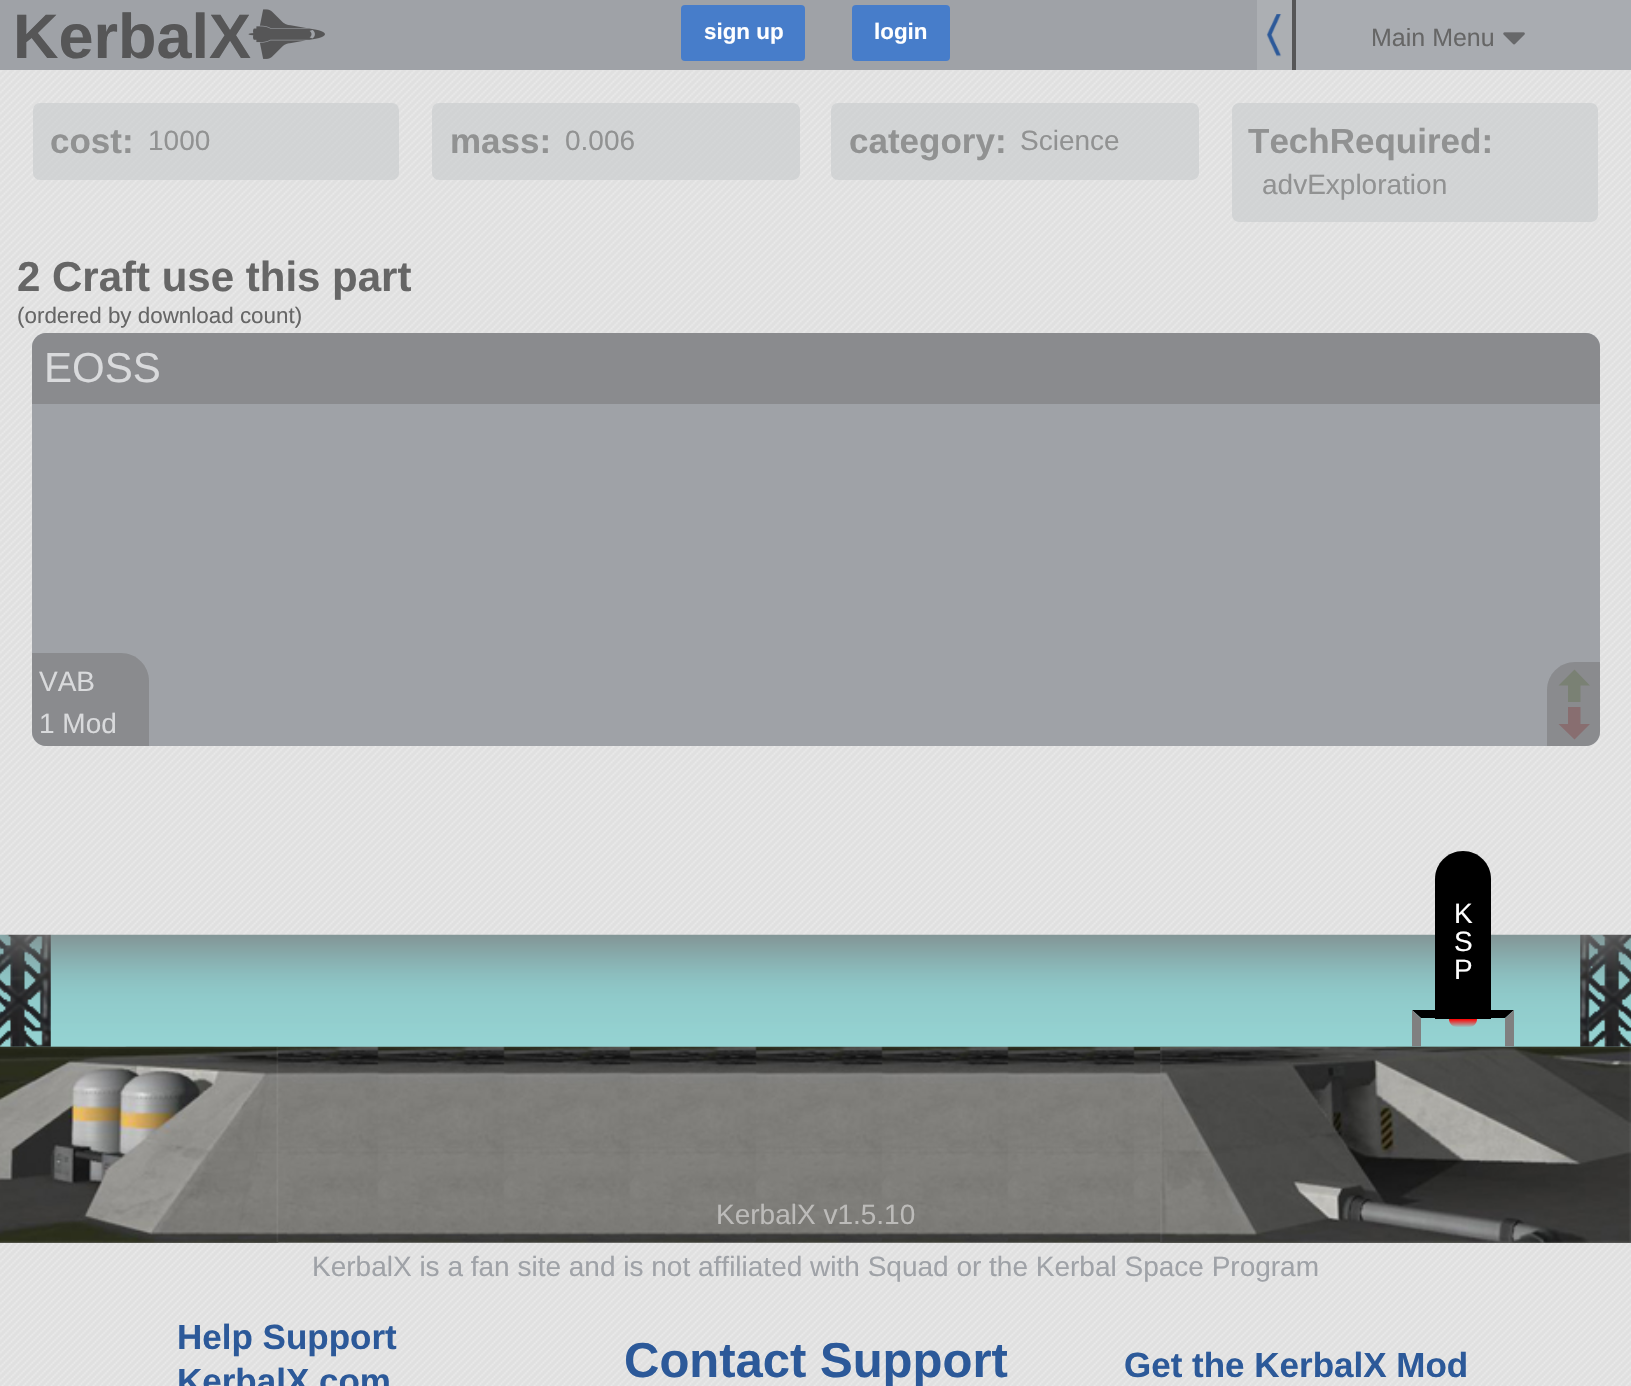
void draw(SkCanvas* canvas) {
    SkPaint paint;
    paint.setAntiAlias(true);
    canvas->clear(0xFFFFFFFF);
    canvas->drawImageRect(SkImages::DeferredFromEncodedData(SkData::MakeFromFileName("img1.png")), SkRect::MakeXYWH(0, 1242, 1631, 144), SkSamplingOptions());
    {
        const SkColor colors[] = {0xFF0F1932, 0xFF95D3D2};
        const float stops[] = {0, 1};
        const SkPoint ends[] = {{815, -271}, {816, 1047}};
        paint.setShader(SkGradientShader::MakeLinear(ends, colors, stops, 2, SkTileMode::kClamp));
        paint.setAlpha(255);
    }
    canvas->drawRect(SkRect::MakeXYWH(0, 934, 1631, 113), paint);
    canvas->drawImageRect(SkImages::DeferredFromEncodedData(SkData::MakeFromFileName("img6.png")), SkRect::MakeXYWH(0, 934, 51, 113), SkSamplingOptions());
    canvas->drawImageRect(SkImages::DeferredFromEncodedData(SkData::MakeFromFileName("img7.png")), SkRect::MakeXYWH(1580, 934, 51, 113), SkSamplingOptions());
    paint.setShader(nullptr);
    paint.setColor(0xFF808080);
    paint.setMaskFilter(SkMaskFilter::MakeBlur(kNormal_SkBlurStyle, 26));
    canvas->drawRect(SkRect::MakeXYWH(-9, -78, 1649, 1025), paint);
    paint.setMaskFilter(nullptr);
    canvas->drawImageRect(SkImages::DeferredFromEncodedData(SkData::MakeFromFileName("img2.png")), SkRect::MakeXYWH(0, 70, 1631, 865), SkSamplingOptions());
    paint.setColor(0xFF9FA2A7);
    canvas->drawRect(SkRect::MakeXYWH(0, 0, 1257, 70), paint);
    SkFont font1(fontMgr->matchFamilyStyle("Liberation Sans", SkFontStyle::Bold()), 63);
    font1.setSubpixel(true);
    paint.setColor(0xFF565657);
    canvas->drawString("KerbalX", 13, 58, font1, paint);
    canvas->drawImageRect(SkImages::DeferredFromEncodedData(SkData::MakeFromFileName("img3.png")), SkRect::MakeXYWH(248, 9, 77, 50), SkSamplingOptions());
    paint.setColor(0xFF477DCA);
    canvas->drawRoundRect(SkRect::MakeXYWH(681, 5, 124, 56), 4, 4, paint);
    SkFont font2(fontMgr->matchFamilyStyle("Liberation Sans", SkFontStyle::Bold()), 22.4f);
    font2.setSubpixel(true);
    paint.setColor(0xFFFFFFFF);
    canvas->drawString("sign up", 704, 39, font2, paint);
    paint.setColor(0xFF477DCA);
    canvas->drawRoundRect(SkRect::MakeXYWH(852, 5, 98, 56), 4, 4, paint);
    paint.setColor(0xFFFFFFFF);
    canvas->drawString("login", 874, 39, font2, paint);
    paint.setColor(0xFFACAFB3);
    canvas->drawRect(SkRect::MakeXYWH(1257, 0, 35, 70), paint);
    paint.setColor(0xFF565657);
    canvas->drawRect(SkRect::MakeXYWH(1292, 0, 4, 70), paint);
    canvas->drawImageRect(SkImages::DeferredFromEncodedData(SkData::MakeFromFileName("img4.png")), SkRect::MakeXYWH(1266, 14, 16, 43), SkSamplingOptions());
    paint.setColor(0xFFA9ACB1);
    canvas->drawRect(SkRect::MakeXYWH(1296, 0, 335, 70), paint);
    SkFont font3(fontMgr->matchFamilyStyle("Liberation Sans", SkFontStyle::Normal()), 25);
    font3.setSubpixel(true);
    paint.setColor(0xFF666666);
    canvas->drawString("Main Menu", 1371, 46, font3, paint);
    canvas->drawImageRect(SkImages::DeferredFromEncodedData(SkData::MakeFromFileName("img5.png")), SkRect::MakeXYWH(1503, 32, 22, 13), SkSamplingOptions());
    paint.setColor(0x99C7C9CC);
    canvas->drawRoundRect(SkRect::MakeXYWH(33, 103, 366, 77), 7, 7, paint);
    SkFont font4(fontMgr->matchFamilyStyle("Liberation Sans", SkFontStyle::Bold()), 35);
    font4.setSubpixel(true);
    paint.setColor(0xFF919292);
    canvas->drawString("cost:", 50, 153, font4, paint);
    SkFont font5(fontMgr->matchFamilyStyle("Liberation Sans", SkFontStyle::Normal()), 28);
    font5.setSubpixel(true);
    canvas->drawString("1000", 148, 150, font5, paint);
    paint.setColor(0x99C7C9CC);
    canvas->drawRoundRect(SkRect::MakeXYWH(432, 103, 368, 77), 7, 7, paint);
    paint.setColor(0xFF919292);
    canvas->drawString("mass:", 450, 153, font4, paint);
    canvas->drawString("0.006", 565, 150, font5, paint);
    paint.setColor(0x99C7C9CC);
    canvas->drawRoundRect(SkRect::MakeXYWH(831, 103, 368, 77), 7, 7, paint);
    paint.setColor(0xFF919292);
    canvas->drawString("category:", 849, 153, font4, paint);
    canvas->drawString("Science", 1020, 150, font5, paint);
    paint.setColor(0x99C7C9CC);
    canvas->drawRoundRect(SkRect::MakeXYWH(1232, 103, 366, 119), 7, 7, paint);
    paint.setColor(0xFF919292);
    canvas->drawString("TechRequired:", 1248, 153, font4, paint);
    canvas->drawString("advExploration", 1262, 194, font5, paint);
    SkFont font6(fontMgr->matchFamilyStyle("Liberation Sans", SkFontStyle::Bold()), 42);
    font6.setSubpixel(true);
    paint.setColor(0xFF666666);
    canvas->drawString("2 Craft use this part", 17, 291, font6, paint);
    SkFont font7(fontMgr->matchFamilyStyle("Liberation Sans", SkFontStyle::Normal()), 22.4f);
    font7.setSubpixel(true);
    canvas->drawString("(ordered by download count)", 17, 323, font7, paint);
    paint.setColor(0xFF9FA2A7);
    canvas->drawRoundRect(SkRect::MakeXYWH(32, 333, 1568, 413), 14, 14, paint);
    paint.setColor(0x997C7C7D);
    canvas->drawPath(SkPathBuilder().moveTo(46, 333).lineTo(1586, 333).cubicTo(1593.5f, 333, 1600, 339.5f, 1600, 347).lineTo(1600, 404).lineTo(32, 404).lineTo(32, 347).cubicTo(32, 339.5f, 38.5f, 333, 46, 333).close().detach(), paint);
    SkFont font8(fontMgr->matchFamilyStyle("Liberation Sans", SkFontStyle::Normal()), 42);
    font8.setSubpixel(true);
    paint.setColor(0xFFD9DADC);
    canvas->drawString("EOSS", 44, 382, font8, paint);
    paint.setColor(0x997C7C7D);
    canvas->drawPath(SkPathBuilder().moveTo(32, 653).lineTo(121, 653).cubicTo(136.5f, 653, 149, 665.5f, 149, 681).lineTo(149, 746).lineTo(46, 746).cubicTo(38.5f, 746, 32, 739.5f, 32, 732).close().detach(), paint);
    paint.setColor(0xFFD9DADC);
    canvas->drawString("VAB", 39, 691, font5, paint);
    canvas->drawString("1 Mod", 39, 733, font5, paint);
    paint.setColor(0x997C7C7D);
    canvas->drawPath(SkPathBuilder().moveTo(1575, 662).lineTo(1600, 662).lineTo(1600, 732).cubicTo(1600, 739.5f, 1593.5f, 746, 1586, 746).lineTo(1547, 746).lineTo(1547, 690).cubicTo(1547, 674.5f, 1559.5f, 662, 1575, 662).close().detach(), paint);
    paint.setColor(0xFF7A8174);
    canvas->drawPath(SkPathBuilder().moveTo(1574.5f, 669.5f).lineTo(1558.5f, 685.5f).lineTo(1568, 685.5f).lineTo(1568, 702).lineTo(1580.5f, 702).lineTo(1580.5f, 685.5f).lineTo(1590, 685.5f).close().detach(), paint);
    paint.setColor(0xFF886E70);
    canvas->drawPath(SkPathBuilder().moveTo(1574.5f, 739.5f).lineTo(1590, 724).lineTo(1580.5f, 724).lineTo(1580.5f, 707).lineTo(1568, 707).lineTo(1568, 724).lineTo(1558.5f, 724).close().detach(), paint);
    paint.setColor(0xFF000000);
    canvas->drawRect(SkRect::MakeXYWH(1435, 907, 56, 112), paint);
    canvas->drawPath(SkPathBuilder().moveTo(1463, 851).cubicTo(1478.5f, 851, 1491, 863.5f, 1491, 879).lineTo(1491, 907).lineTo(1435, 907).lineTo(1435, 879).cubicTo(1435, 863.5f, 1447.5f, 851, 1463, 851).close().detach(), paint);
    paint.setColor(0xFFFFFFFF);
    canvas->drawString("K", 1454, 923, font5, paint);
    canvas->drawString("S", 1454, 951, font5, paint);
    canvas->drawString("P", 1454, 979, font5, paint);
    {
        const SkColor colors[] = {0xFFFF0000, 0xFF98C5C5};
        const float stops[] = {0, 1};
        const SkPoint ends[] = {{1463, 1019}, {1463, 1027}};
        paint.setShader(SkGradientShader::MakeLinear(ends, colors, stops, 2, SkTileMode::kClamp));
        paint.setAlpha(255);
    }
    canvas->drawPath(SkPathBuilder().moveTo(1449, 1019).lineTo(1477, 1019).cubicTo(1477, 1023.5f, 1473.5f, 1027, 1469, 1027).lineTo(1457, 1027).cubicTo(1452.5f, 1027, 1449, 1023.5f, 1449, 1019).close().detach(), paint);
    paint.setShader(nullptr);
    paint.setColor(0xFF000000);
    canvas->drawPath(SkPathBuilder().moveTo(1412, 1010).lineTo(1514, 1010).lineTo(1505, 1018).lineTo(1421, 1018).close().detach(), paint);
    canvas->drawImageRect(SkImages::DeferredFromEncodedData(SkData::MakeFromFileName("img8.png")), SkRect::MakeXYWH(0, 1242, 1631, 1), SkSamplingOptions());
    canvas->drawImageRect(SkImages::DeferredFromEncodedData(SkData::MakeFromFileName("img9.png")), SkRect::MakeXYWH(0, 1046, 1631, 197), SkSamplingOptions());
    canvas->drawImageRect(SkImages::DeferredFromEncodedData(SkData::MakeFromFileName("img11.png")), SkRect::MakeXYWH(1160, 1046, 471, 197), SkSamplingOptions());
    paint.setColor(0xFF808080);
    canvas->drawPath(SkPathBuilder().moveTo(1514, 1010).lineTo(1514, 1046.5f).lineTo(1505, 1046.5f).lineTo(1505, 1018.5f).close().detach(), paint);
    canvas->drawPath(SkPathBuilder().moveTo(1412, 1046.5f).lineTo(1412, 1010).lineTo(1421, 1018.5f).lineTo(1421, 1046.5f).close().detach(), paint);
    canvas->drawImageRect(SkImages::DeferredFromEncodedData(SkData::MakeFromFileName("img10.png")), SkRect::MakeXYWH(0, 1046, 279, 197), SkSamplingOptions());
    paint.setColor(0xFFBCBBB9);
    canvas->drawString("KerbalX v1.5.10", 716, 1224, font5, paint);
    paint.setColor(0xFF9FA2A7);
    canvas->drawString("KerbalX is a fan site and is not affiliated with Squad or the Kerbal Space Program", 312, 1276, font5, paint);
    paint.setColor(0xFF2C5999);
    canvas->drawString("Help Support", 177, 1349, font4, paint);
    canvas->drawString("KerbalX.com", 177, 1393, font4, paint);
    SkFont font9(fontMgr->matchFamilyStyle("Liberation Sans", SkFontStyle::Bold()), 49);
    font9.setSubpixel(true);
    canvas->drawString("Contact Support", 624, 1377, font9, paint);
    canvas->drawString("Get the KerbalX Mod", 1124, 1377, font4, paint);
}
